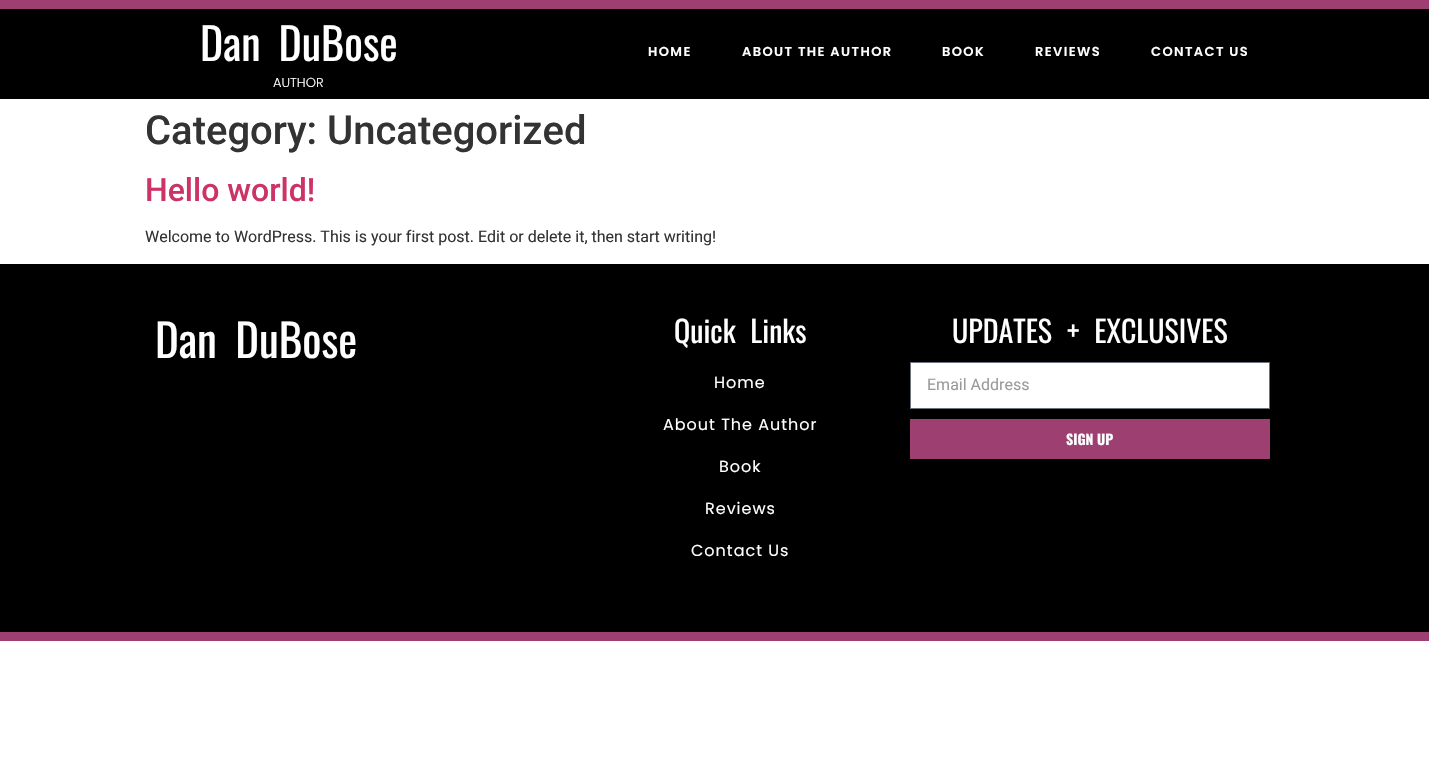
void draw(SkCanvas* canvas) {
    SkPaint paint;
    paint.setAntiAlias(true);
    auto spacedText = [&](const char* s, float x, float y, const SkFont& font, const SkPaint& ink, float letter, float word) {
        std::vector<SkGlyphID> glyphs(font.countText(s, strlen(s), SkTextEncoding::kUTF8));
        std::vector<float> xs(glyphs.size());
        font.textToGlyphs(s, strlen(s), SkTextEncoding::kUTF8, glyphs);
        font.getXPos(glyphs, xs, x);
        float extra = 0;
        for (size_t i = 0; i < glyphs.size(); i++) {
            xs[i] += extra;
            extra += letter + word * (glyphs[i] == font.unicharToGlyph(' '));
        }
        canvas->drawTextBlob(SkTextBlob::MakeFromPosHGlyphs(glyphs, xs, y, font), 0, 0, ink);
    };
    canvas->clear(0xFFFFFFFF);
    paint.setColor(0xFF000000);
    canvas->drawRect(SkRect::MakeXYWH(0, 9, 1429, 90), paint);
    paint.setColor(0xFF9D3F71);
    canvas->drawRect(SkRect::MakeXYWH(0, 0, 1429, 9), paint);
    SkFont font1(fontMgr->matchFamilyStyle("Oswald", SkFontStyle::Normal()), 44);
    font1.setSubpixel(true);
    paint.setColor(0xFFFFFFFF);
    spacedText("Dan DuBose", 200, 61, font1, paint, 0, 8);
    SkFont font2(fontMgr->matchFamilyStyle("Poppins", SkFontStyle(300, SkFontStyle::kNormal_Width, SkFontStyle::kUpright_Slant)), 13);
    font2.setSubpixel(true);
    canvas->drawString("AUTHOR", 273, 87, font2, paint);
    SkFont font3(fontMgr->matchFamilyStyle("Poppins", SkFontStyle(600, SkFontStyle::kNormal_Width, SkFontStyle::kUpright_Slant)), 13);
    font3.setSubpixel(true);
    spacedText("HOME", 648, 56, font3, paint, 1.4f, 0);
    spacedText("ABOUT THE AUTHOR", 742, 56, font3, paint, 1.4f, 0);
    spacedText("BOOK", 942, 56, font3, paint, 1.4f, 0);
    spacedText("REVIEWS", 1035, 56, font3, paint, 1.4f, 0);
    spacedText("CONTACT US", 1151, 56, font3, paint, 1.4f, 0);
    SkFont font4(fontMgr->matchFamilyStyle("Roboto", SkFontStyle(500, SkFontStyle::kNormal_Width, SkFontStyle::kUpright_Slant)), 40);
    font4.setSubpixel(true);
    paint.setColor(0xFF333333);
    canvas->drawString("Category: Uncategorized", 145, 144, font4, paint);
    SkFont font5(fontMgr->matchFamilyStyle("Roboto", SkFontStyle(500, SkFontStyle::kNormal_Width, SkFontStyle::kUpright_Slant)), 32);
    font5.setSubpixel(true);
    paint.setColor(0xFFCC3366);
    canvas->drawString("Hello world!", 145, 201, font5, paint);
    SkFont font6(fontMgr->matchFamilyStyle("Roboto", SkFontStyle::Normal()), 16);
    font6.setSubpixel(true);
    paint.setColor(0xFF333333);
    canvas->drawString("Welcome to WordPress. This is your first post. Edit or delete it, then start writing!", 145, 242, font6, paint);
    paint.setColor(0xFF000000);
    canvas->drawRect(SkRect::MakeXYWH(0, 264, 1429, 368), paint);
    paint.setColor(0xFF9D3F71);
    canvas->drawRect(SkRect::MakeXYWH(0, 632, 1429, 9), paint);
    SkFont font7(fontMgr->matchFamilyStyle("Oswald", SkFontStyle::Normal()), 45);
    font7.setSubpixel(true);
    paint.setColor(0xFFFFFFFF);
    spacedText("Dan DuBose", 155, 358, font7, paint, 0, 8);
    SkFont font8(fontMgr->matchFamilyStyle("Oswald", SkFontStyle::Normal()), 30);
    font8.setSubpixel(true);
    spacedText("Quick Links", 674, 343, font8, paint, 0, 8);
    SkFont font9(fontMgr->matchFamilyStyle("Poppins", SkFontStyle::Normal()), 16);
    font9.setSubpixel(true);
    spacedText("Home", 714, 388, font9, paint, 1, 0);
    spacedText("About The Author", 663, 430, font9, paint, 1, 0);
    spacedText("Book", 719, 472, font9, paint, 1, 0);
    spacedText("Reviews", 705, 514, font9, paint, 1, 0);
    spacedText("Contact Us", 691, 556, font9, paint, 1, 0);
    spacedText("UPDATES + EXCLUSIVES", 952, 343, font8, paint, 0, 8);
    canvas->drawRect(SkRect::MakeXYWH(910.5f, 362.5f, 359, 46), paint);
    paint.setStyle(SkPaint::kStroke_Style);
    paint.setStrokeWidth(1);
    paint.setColor(0xFF69727D);
    canvas->drawRect(SkRect::MakeXYWH(910.5f, 362.5f, 359, 46), paint);
    paint.setStyle(SkPaint::kFill_Style);
    paint.setColor(0xFF9A9A9A);
    canvas->drawString("Email Address", 927, 390, font6, paint);
    paint.setColor(0xFF9D3F71);
    canvas->drawRect(SkRect::MakeXYWH(910, 419, 360, 40), paint);
    SkFont font10(fontMgr->matchFamilyStyle("Oswald", SkFontStyle::Bold()), 14);
    font10.setSubpixel(true);
    paint.setColor(0xFFFFFFFF);
    canvas->drawString("SIGN UP", 1066, 445, font10, paint);
}
